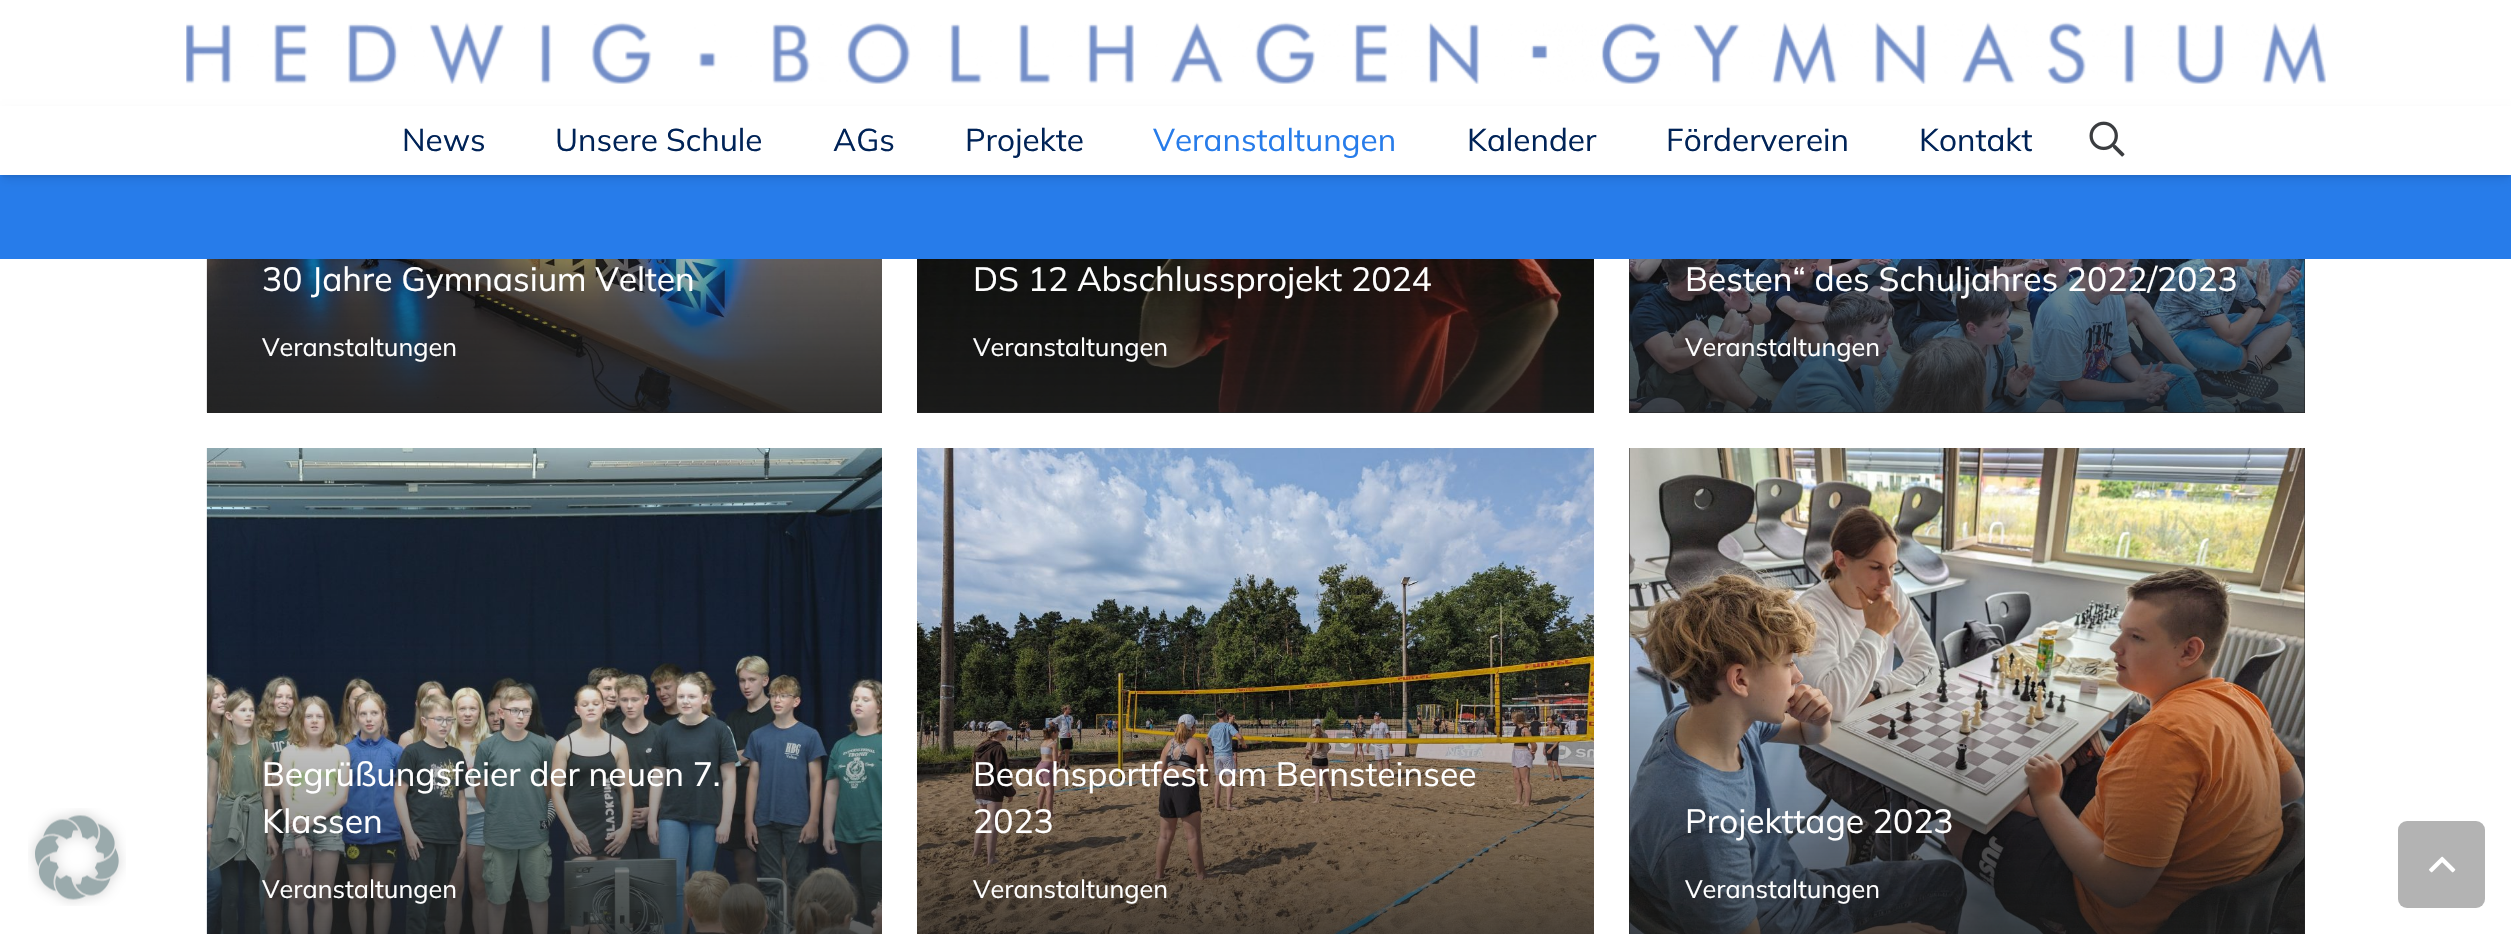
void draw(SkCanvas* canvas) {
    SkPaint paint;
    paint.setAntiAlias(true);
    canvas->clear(0xFFFFFFFF);
    canvas->drawImageRect(SkImages::DeferredFromEncodedData(SkData::MakeFromFileName("img1.png")), SkRect::MakeXYWH(28, 808, 98, 98), SkSamplingOptions());
    canvas->drawImageRect(SkImages::DeferredFromEncodedData(SkData::MakeFromFileName("img2.png")), SkRect::MakeXYWH(186, 22, 2140, 62), SkSamplingOptions());
    paint.setColor(0xFF277CEA);
    canvas->drawRect(SkRect::MakeXYWH(0, 175, 2511, 84), paint);
    paint.setColor(0x0D000000);
    paint.setMaskFilter(SkMaskFilter::MakeBlur(kNormal_SkBlurStyle, 1));
    canvas->drawRect(SkRect::MakeXYWH(2, 110, 2508, 67), paint);
    paint.setMaskFilter(nullptr);
    paint.setColor(0x1A000000);
    paint.setMaskFilter(SkMaskFilter::MakeBlur(kNormal_SkBlurStyle, 4.5f));
    canvas->drawRect(SkRect::MakeXYWH(2, 112, 2508, 67), paint);
    paint.setMaskFilter(nullptr);
    paint.setColor(0xFFFFFFFF);
    canvas->drawRect(SkRect::MakeXYWH(0, 106, 2511, 69), paint);
    SkFont font1(fontMgr->matchFamilyStyle("Mulish", SkFontStyle(200, SkFontStyle::kNormal_Width, SkFontStyle::kUpright_Slant)), 31.5f);
    font1.setSubpixel(true);
    paint.setColor(0xFF002357);
    canvas->drawString("News", 402, 151, font1, paint);
    canvas->drawString("Unsere Schule", 555, 151, font1, paint);
    canvas->drawString("AGs", 833, 151, font1, paint);
    canvas->drawString("Projekte", 965, 151, font1, paint);
    paint.setColor(0xFF277CEA);
    canvas->drawString("Veranstaltungen", 1153, 151, font1, paint);
    paint.setColor(0xFF002357);
    canvas->drawString("Kalender", 1467, 151, font1, paint);
    canvas->drawString("Förderverein", 1666, 151, font1, paint);
    canvas->drawString("Kontakt", 1919, 151, font1, paint);
    canvas->drawImageRect(SkImages::DeferredFromEncodedData(SkData::MakeFromFileName("img3.png")), SkRect::MakeXYWH(2089, 121, 36, 36), SkSamplingOptions());
    paint.setColor(0xFF333333);
    canvas->drawRect(SkRect::MakeXYWH(207, 412, 675, 1), paint);
    canvas->drawImageRect(SkImages::DeferredFromEncodedData(SkData::MakeFromFileName("img4.png")), SkRect::MakeXYWH(206, 259, 676, 154), SkSamplingOptions());
    {
        const SkColor colors[] = {0x001E1E1E, 0xCC1E1E1E};
        const float stops[] = {0, 1};
        const SkPoint ends[] = {{544, 143}, {544, 413}};
        paint.setShader(SkGradientShader::MakeLinear(ends, colors, stops, 2, SkTileMode::kClamp));
        paint.setAlpha(255);
    }
    canvas->drawRect(SkRect::MakeXYWH(207, 259, 675, 154), paint);
    SkFont font2(fontMgr->matchFamilyStyle("Mulish", SkFontStyle(200, SkFontStyle::kNormal_Width, SkFontStyle::kUpright_Slant)), 33.6f);
    font2.setSubpixel(true);
    paint.setShader(nullptr);
    paint.setColor(0xFFFFFFFF);
    canvas->drawString("30 Jahre Gymnasium Velten", 262, 291, font2, paint);
    SkFont font3(fontMgr->matchFamilyStyle("Mulish", SkFontStyle(200, SkFontStyle::kNormal_Width, SkFontStyle::kUpright_Slant)), 25.25f);
    font3.setSubpixel(true);
    canvas->drawString("Veranstaltungen", 262, 356, font3, paint);
    paint.setColor(0xFF333333);
    canvas->drawRect(SkRect::MakeXYWH(917, 412, 677, 1), paint);
    canvas->drawImageRect(SkImages::DeferredFromEncodedData(SkData::MakeFromFileName("img5.png")), SkRect::MakeXYWH(917, 259, 677, 154), SkSamplingOptions());
    {
        const SkColor colors[] = {0x001E1E1E, 0xCC1E1E1E};
        const float stops[] = {0, 1};
        const SkPoint ends[] = {{1256, 143}, {1256, 413}};
        paint.setShader(SkGradientShader::MakeLinear(ends, colors, stops, 2, SkTileMode::kClamp));
        paint.setAlpha(255);
    }
    canvas->drawRect(SkRect::MakeXYWH(917, 259, 677, 154), paint);
    paint.setShader(nullptr);
    paint.setColor(0xFFFFFFFF);
    canvas->drawString("DS 12 Abschlussprojekt 2024", 973, 291, font2, paint);
    canvas->drawString("Veranstaltungen", 973, 356, font3, paint);
    paint.setColor(0xFF333333);
    canvas->drawRect(SkRect::MakeXYWH(1629, 259, 676, 154), paint);
    canvas->drawImageRect(SkImages::DeferredFromEncodedData(SkData::MakeFromFileName("img6.png")), SkRect::MakeXYWH(1629, 259, 676, 154), SkSamplingOptions());
    {
        const SkColor colors[] = {0x001E1E1E, 0xCC1E1E1E};
        const float stops[] = {0, 1};
        const SkPoint ends[] = {{1967, 96}, {1967, 413}};
        paint.setShader(SkGradientShader::MakeLinear(ends, colors, stops, 2, SkTileMode::kClamp));
        paint.setAlpha(255);
    }
    canvas->drawRect(SkRect::MakeXYWH(1629, 259, 676, 154), paint);
    paint.setShader(nullptr);
    paint.setColor(0xFFFFFFFF);
    canvas->drawString("Besten“ des Schuljahres 2022/2023", 1685, 291, font2, paint);
    canvas->drawString("Veranstaltungen", 1685, 356, font3, paint);
    canvas->drawImageRect(SkImages::DeferredFromEncodedData(SkData::MakeFromFileName("img7.png")), SkRect::MakeXYWH(206, 448, 676, 486), SkSamplingOptions());
    canvas->drawString("Begrüßungsfeier der neuen 7.", 262, 786, font2, paint);
    canvas->drawString("Klassen", 262, 833, font2, paint);
    canvas->drawString("Veranstaltungen", 262, 898, font3, paint);
    canvas->drawImageRect(SkImages::DeferredFromEncodedData(SkData::MakeFromFileName("img8.png")), SkRect::MakeXYWH(917, 448, 677, 486), SkSamplingOptions());
    canvas->drawString("Beachsportfest am Bernsteinsee", 973, 786, font2, paint);
    canvas->drawString("2023", 973, 833, font2, paint);
    canvas->drawString("Veranstaltungen", 973, 898, font3, paint);
    paint.setColor(0xFF333333);
    canvas->drawRect(SkRect::MakeXYWH(1629, 448, 676, 486), paint);
    canvas->drawImageRect(SkImages::DeferredFromEncodedData(SkData::MakeFromFileName("img9.png")), SkRect::MakeXYWH(1629, 448, 676, 486), SkSamplingOptions());
    {
        const SkColor colors[] = {0x001E1E1E, 0xCC1E1E1E};
        const float stops[] = {0, 1};
        const SkPoint ends[] = {{1967, 686}, {1967, 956}};
        paint.setShader(SkGradientShader::MakeLinear(ends, colors, stops, 2, SkTileMode::kClamp));
        paint.setAlpha(255);
    }
    canvas->drawRect(SkRect::MakeXYWH(1629, 693, 676, 241), paint);
    paint.setShader(nullptr);
    paint.setColor(0xFFFFFFFF);
    canvas->drawString("Projekttage 2023", 1685, 833, font2, paint);
    canvas->drawString("Veranstaltungen", 1685, 898, font3, paint);
    paint.setColor(0xFFB3B3B3);
    canvas->drawRoundRect(SkRect::MakeXYWH(2398, 821, 87, 87), 9, 9, paint);
    canvas->drawImageRect(SkImages::DeferredFromEncodedData(SkData::MakeFromFileName("img10.png")), SkRect::MakeXYWH(2429, 856, 27, 17), SkSamplingOptions());
}
